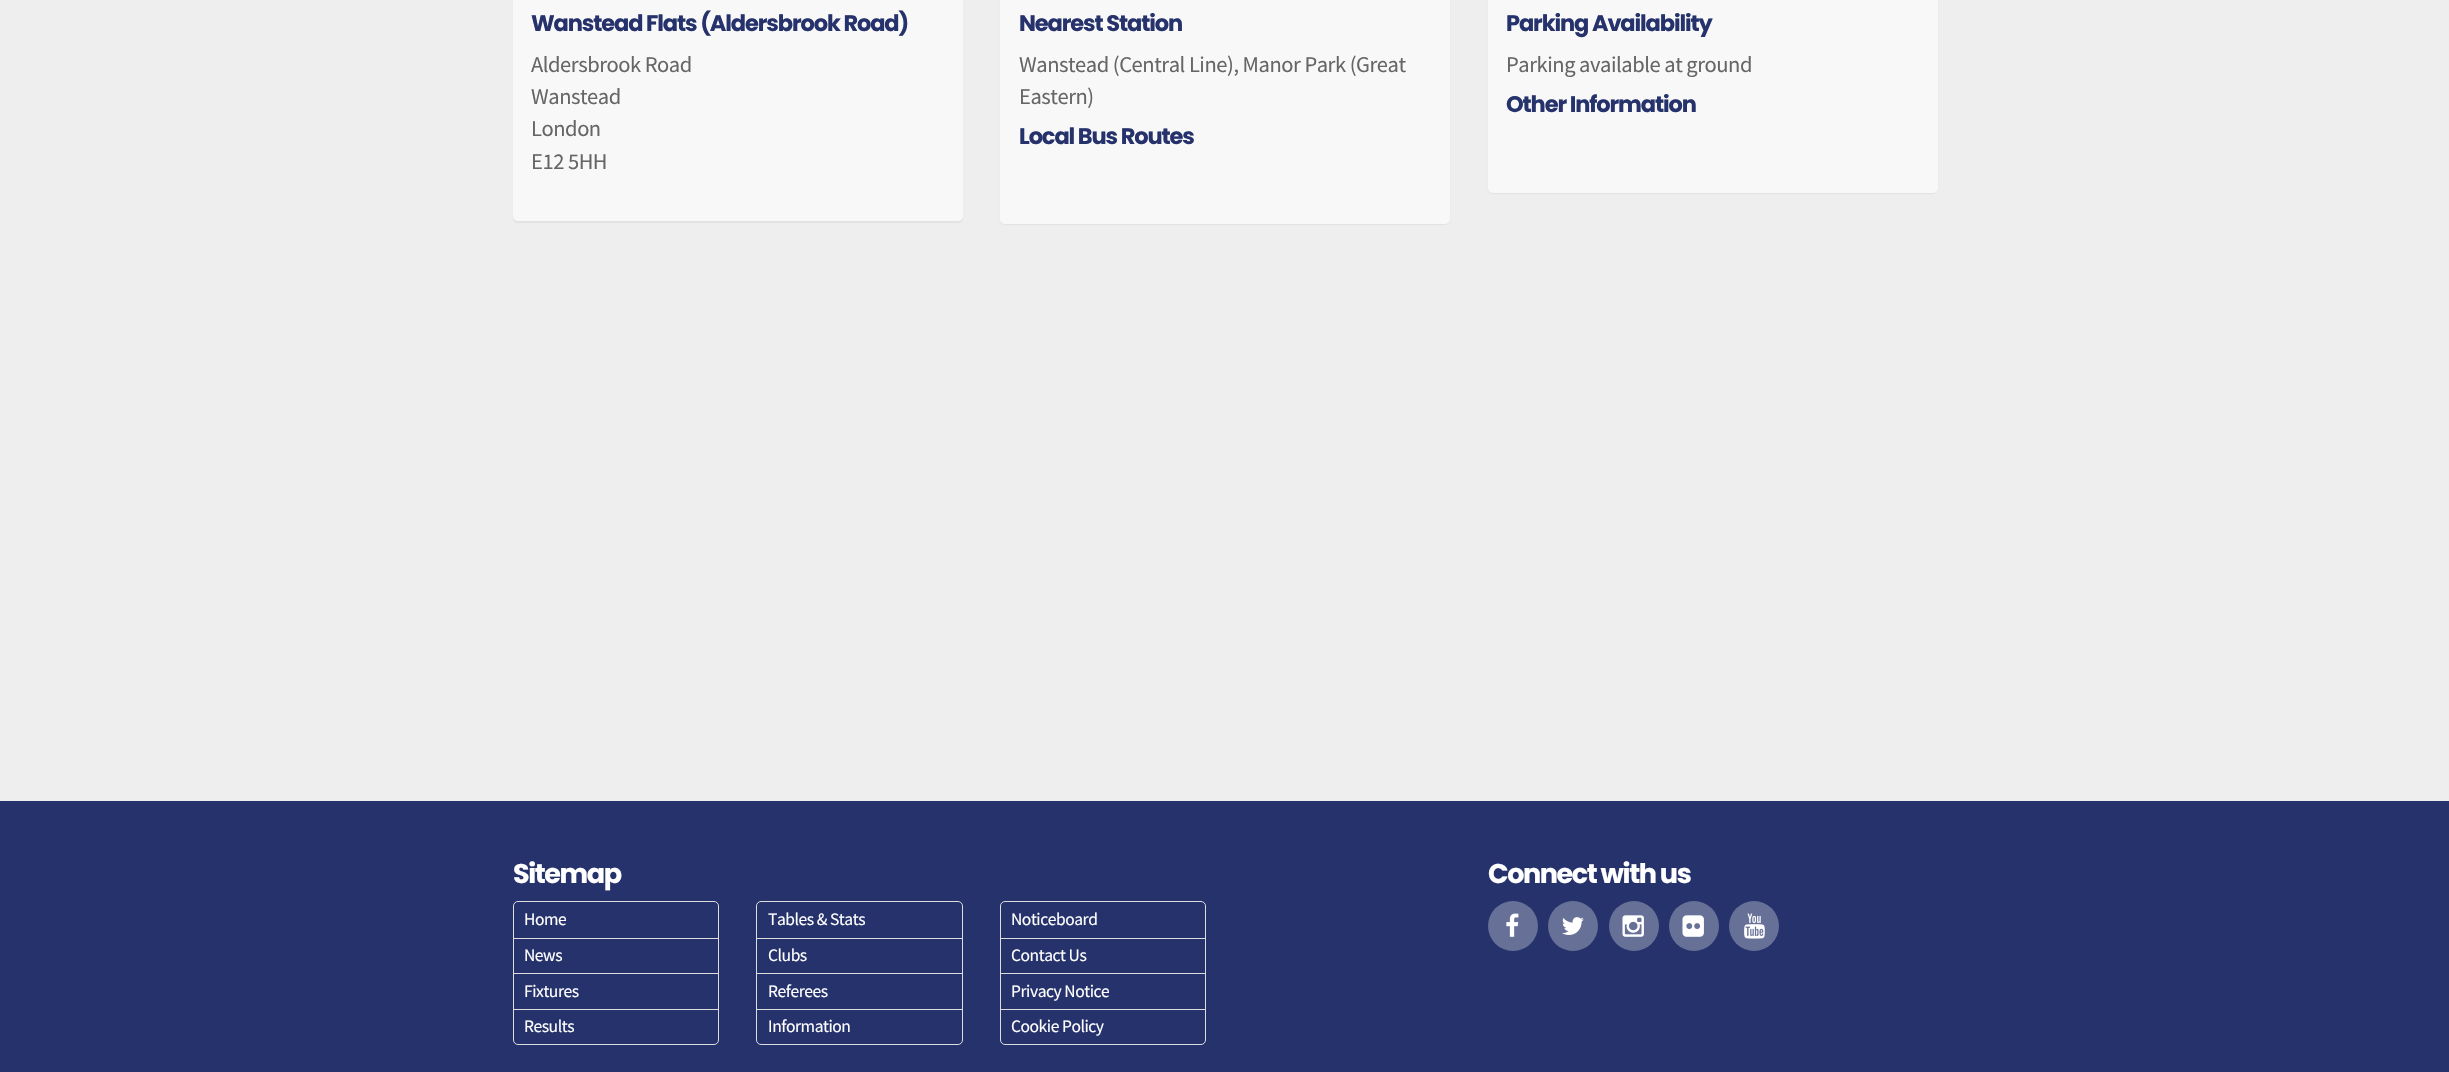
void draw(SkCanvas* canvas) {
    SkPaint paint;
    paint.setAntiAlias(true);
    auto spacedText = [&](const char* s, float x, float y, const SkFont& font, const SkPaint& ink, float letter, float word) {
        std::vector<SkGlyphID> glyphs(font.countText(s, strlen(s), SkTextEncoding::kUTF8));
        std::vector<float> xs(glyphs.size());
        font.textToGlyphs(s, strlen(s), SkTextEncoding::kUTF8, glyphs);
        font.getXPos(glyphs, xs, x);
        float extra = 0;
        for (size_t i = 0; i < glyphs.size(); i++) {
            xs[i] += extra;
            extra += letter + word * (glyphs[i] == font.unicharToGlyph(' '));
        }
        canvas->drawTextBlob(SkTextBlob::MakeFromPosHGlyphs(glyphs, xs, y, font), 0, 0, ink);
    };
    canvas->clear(0xFFEEEEEE);
    canvas->save();
    canvas->clipPath(SkPathBuilder(SkPathFillType::kEvenOdd).moveTo(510, 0).lineTo(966, 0).lineTo(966, 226).lineTo(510, 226).close().moveTo(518, -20).lineTo(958, -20).cubicTo(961, -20, 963, -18, 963, -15).lineTo(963, 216).cubicTo(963, 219, 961, 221, 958, 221).lineTo(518, 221).cubicTo(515, 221, 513, 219, 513, 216).lineTo(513, -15).cubicTo(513, -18, 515, -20, 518, -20).close().detach(), true);
    paint.setColor(0x0D000000);
    paint.setMaskFilter(SkMaskFilter::MakeBlur(kNormal_SkBlurStyle, 0.5f));
    canvas->drawRoundRect(SkRect::MakeXYWH(513, -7, 450, 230), 5, 5, paint);
    paint.setMaskFilter(nullptr);
    canvas->restore();
    paint.setColor(0x99FFFFFF);
    canvas->drawRoundRect(SkRect::MakeXYWH(513, -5, 450, 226), 5, 5, paint);
    SkFont font1(fontMgr->matchFamilyStyle("Poppins", SkFontStyle::Bold()), 22.5f);
    font1.setSubpixel(true);
    paint.setColor(0xFF26326B);
    spacedText("Wanstead Flats (Aldersbrook Road)", 531, 31, font1, paint, -1.1f, 0);
    SkFont font2(fontMgr->matchFamilyStyle("Source Sans Pro", SkFontStyle::Normal()), 22.5f);
    font2.setSubpixel(true);
    paint.setColor(0xFF666666);
    spacedText("Aldersbrook Road", 531, 72, font2, paint, -0.45f, 0);
    spacedText("Wanstead", 531, 104, font2, paint, -0.45f, 0);
    spacedText("London", 531, 136, font2, paint, -0.45f, 0);
    spacedText("E12 5HH", 531, 169, font2, paint, -0.45f, 0);
    canvas->save();
    canvas->clipPath(SkPathBuilder(SkPathFillType::kEvenOdd).moveTo(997, 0).lineTo(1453, 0).lineTo(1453, 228).lineTo(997, 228).close().moveTo(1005, -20).lineTo(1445, -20).cubicTo(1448, -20, 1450, -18, 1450, -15).lineTo(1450, 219).cubicTo(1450, 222, 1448, 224, 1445, 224).lineTo(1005, 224).cubicTo(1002, 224, 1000, 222, 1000, 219).lineTo(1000, -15).cubicTo(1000, -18, 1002, -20, 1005, -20).close().detach(), true);
    paint.setColor(0x0D000000);
    paint.setMaskFilter(SkMaskFilter::MakeBlur(kNormal_SkBlurStyle, 0.5f));
    canvas->drawRoundRect(SkRect::MakeXYWH(1000, -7, 450, 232), 5, 5, paint);
    paint.setMaskFilter(nullptr);
    canvas->restore();
    paint.setColor(0x99FFFFFF);
    canvas->drawRoundRect(SkRect::MakeXYWH(1000, -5, 450, 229), 5, 5, paint);
    paint.setColor(0xFF26326B);
    spacedText("Nearest Station", 1019, 31, font1, paint, -1.1f, 0);
    paint.setColor(0xFF666666);
    spacedText("Wanstead (Central Line), Manor Park (Great", 1019, 72, font2, paint, -0.45f, 0);
    spacedText("Eastern)", 1019, 104, font2, paint, -0.45f, 0);
    paint.setColor(0xFF26326B);
    spacedText("Local Bus Routes", 1019, 144, font1, paint, -1.1f, 0);
    canvas->save();
    canvas->clipPath(SkPathBuilder(SkPathFillType::kEvenOdd).moveTo(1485, 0).lineTo(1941, 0).lineTo(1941, 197).lineTo(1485, 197).close().moveTo(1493, -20).lineTo(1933, -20).cubicTo(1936, -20, 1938, -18, 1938, -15).lineTo(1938, 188).cubicTo(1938, 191, 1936, 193, 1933, 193).lineTo(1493, 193).cubicTo(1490, 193, 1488, 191, 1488, 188).lineTo(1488, -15).cubicTo(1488, -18, 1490, -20, 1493, -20).close().detach(), true);
    paint.setColor(0x0D000000);
    paint.setMaskFilter(SkMaskFilter::MakeBlur(kNormal_SkBlurStyle, 0.5f));
    canvas->drawRoundRect(SkRect::MakeXYWH(1488, -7, 450, 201), 5, 5, paint);
    paint.setMaskFilter(nullptr);
    canvas->restore();
    paint.setColor(0x99FFFFFF);
    canvas->drawRoundRect(SkRect::MakeXYWH(1488, -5, 450, 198), 5, 5, paint);
    paint.setColor(0xFF26326B);
    spacedText("Parking Availability", 1506, 31, font1, paint, -1.1f, 0);
    paint.setColor(0xFF666666);
    spacedText("Parking available at ground", 1506, 72, font2, paint, -0.45f, 0);
    paint.setColor(0xFF26326B);
    spacedText("Other Information", 1506, 112, font1, paint, -1.1f, 0);
    canvas->drawRect(SkRect::MakeXYWH(0, 801, 2449, 271), paint);
    SkFont font3(fontMgr->matchFamilyStyle("Poppins", SkFontStyle::Bold()), 27);
    font3.setSubpixel(true);
    paint.setColor(0xFFFFFFFF);
    spacedText("Sitemap", 513, 883, font3, paint, -1.4f, 0);
    paint.setStyle(SkPaint::kStroke_Style);
    paint.setStrokeWidth(1);
    paint.setColor(0xFFDDDDDD);
    canvas->drawPath(SkPathBuilder().moveTo(518, 901.5f).lineTo(714, 901.5f).cubicTo(716.5f, 901.5f, 718.5f, 903.5f, 718.5f, 906).lineTo(718.5f, 938.5f).lineTo(513.5f, 938.5f).lineTo(513.5f, 906).cubicTo(513.5f, 903.5f, 515.5f, 901.5f, 518, 901.5f).close().detach(), paint);
    SkFont font4(fontMgr->matchFamilyStyle("Source Sans Pro", SkFontStyle::Normal()), 17.5f);
    font4.setSubpixel(true);
    paint.setStyle(SkPaint::kFill_Style);
    paint.setColor(0xFFFFFFFF);
    spacedText("Home", 524, 925, font4, paint, -0.45f, 0);
    paint.setStyle(SkPaint::kStroke_Style);
    paint.setColor(0xFFDDDDDD);
    canvas->drawRect(SkRect::MakeXYWH(513.5f, 938.5f, 205, 35), paint);
    paint.setStyle(SkPaint::kFill_Style);
    paint.setColor(0xFFFFFFFF);
    spacedText("News", 524, 961, font4, paint, -0.45f, 0);
    paint.setStyle(SkPaint::kStroke_Style);
    paint.setColor(0xFFDDDDDD);
    canvas->drawRect(SkRect::MakeXYWH(513.5f, 973.5f, 205, 36), paint);
    paint.setStyle(SkPaint::kFill_Style);
    paint.setColor(0xFFFFFFFF);
    spacedText("Fixtures", 524, 997, font4, paint, -0.45f, 0);
    paint.setStyle(SkPaint::kStroke_Style);
    paint.setColor(0xFFDDDDDD);
    canvas->drawPath(SkPathBuilder().moveTo(513.5f, 1009.5f).lineTo(718.5f, 1009.5f).lineTo(718.5f, 1040).cubicTo(718.5f, 1042.5f, 716.5f, 1044.5f, 714, 1044.5f).lineTo(518, 1044.5f).cubicTo(515.5f, 1044.5f, 513.5f, 1042.5f, 513.5f, 1040).close().detach(), paint);
    paint.setStyle(SkPaint::kFill_Style);
    paint.setColor(0xFFFFFFFF);
    spacedText("Results", 524, 1032, font4, paint, -0.45f, 0);
    spacedText("Connect with us", 1488, 883, font3, paint, -1.4f, 0);
    paint.setColor(0xFF677097);
    canvas->drawCircle(1513, 926, 25, paint);
    canvas->drawImageRect(SkImages::DeferredFromEncodedData(SkData::MakeFromFileName("img1.png")), SkRect::MakeXYWH(1506, 913, 13, 24), SkSamplingOptions());
    canvas->drawCircle(1573, 926, 25, paint);
    canvas->drawImageRect(SkImages::DeferredFromEncodedData(SkData::MakeFromFileName("img2.png")), SkRect::MakeXYWH(1562, 917, 22, 18), SkSamplingOptions());
    canvas->drawCircle(1634, 926, 25, paint);
    canvas->drawImageRect(SkImages::DeferredFromEncodedData(SkData::MakeFromFileName("img3.png")), SkRect::MakeXYWH(1622, 915, 22, 22), SkSamplingOptions());
    canvas->drawCircle(1694, 926, 25, paint);
    canvas->drawImageRect(SkImages::DeferredFromEncodedData(SkData::MakeFromFileName("img4.png")), SkRect::MakeXYWH(1682, 915, 22, 22), SkSamplingOptions());
    canvas->drawCircle(1754, 926, 25, paint);
    canvas->drawImageRect(SkImages::DeferredFromEncodedData(SkData::MakeFromFileName("img5.png")), SkRect::MakeXYWH(1744, 913, 21, 26), SkSamplingOptions());
    paint.setStyle(SkPaint::kStroke_Style);
    paint.setColor(0xFFDDDDDD);
    canvas->drawPath(SkPathBuilder().moveTo(761, 901.5f).lineTo(958, 901.5f).cubicTo(960.5f, 901.5f, 962.5f, 903.5f, 962.5f, 906).lineTo(962.5f, 938.5f).lineTo(756.5f, 938.5f).lineTo(756.5f, 906).cubicTo(756.5f, 903.5f, 758.5f, 901.5f, 761, 901.5f).close().detach(), paint);
    paint.setStyle(SkPaint::kFill_Style);
    paint.setColor(0xFFFFFFFF);
    spacedText("Tables & Stats", 768, 925, font4, paint, -0.45f, 0);
    paint.setStyle(SkPaint::kStroke_Style);
    paint.setColor(0xFFDDDDDD);
    canvas->drawRect(SkRect::MakeXYWH(756.5f, 938.5f, 206, 35), paint);
    paint.setStyle(SkPaint::kFill_Style);
    paint.setColor(0xFFFFFFFF);
    spacedText("Clubs", 768, 961, font4, paint, -0.45f, 0);
    paint.setStyle(SkPaint::kStroke_Style);
    paint.setColor(0xFFDDDDDD);
    canvas->drawRect(SkRect::MakeXYWH(756.5f, 973.5f, 206, 36), paint);
    paint.setStyle(SkPaint::kFill_Style);
    paint.setColor(0xFFFFFFFF);
    spacedText("Referees", 768, 997, font4, paint, -0.45f, 0);
    paint.setStyle(SkPaint::kStroke_Style);
    paint.setColor(0xFFDDDDDD);
    canvas->drawPath(SkPathBuilder().moveTo(756.5f, 1009.5f).lineTo(962.5f, 1009.5f).lineTo(962.5f, 1040).cubicTo(962.5f, 1042.5f, 960.5f, 1044.5f, 958, 1044.5f).lineTo(761, 1044.5f).cubicTo(758.5f, 1044.5f, 756.5f, 1042.5f, 756.5f, 1040).close().detach(), paint);
    paint.setStyle(SkPaint::kFill_Style);
    paint.setColor(0xFFFFFFFF);
    spacedText("Information", 768, 1032, font4, paint, -0.45f, 0);
    paint.setStyle(SkPaint::kStroke_Style);
    paint.setColor(0xFFDDDDDD);
    canvas->drawPath(SkPathBuilder().moveTo(1005, 901.5f).lineTo(1201, 901.5f).cubicTo(1203.5f, 901.5f, 1205.5f, 903.5f, 1205.5f, 906).lineTo(1205.5f, 938.5f).lineTo(1000.5f, 938.5f).lineTo(1000.5f, 906).cubicTo(1000.5f, 903.5f, 1002.5f, 901.5f, 1005, 901.5f).close().detach(), paint);
    paint.setStyle(SkPaint::kFill_Style);
    paint.setColor(0xFFFFFFFF);
    spacedText("Noticeboard", 1011, 925, font4, paint, -0.45f, 0);
    paint.setStyle(SkPaint::kStroke_Style);
    paint.setColor(0xFFDDDDDD);
    canvas->drawRect(SkRect::MakeXYWH(1000.5f, 938.5f, 205, 35), paint);
    paint.setStyle(SkPaint::kFill_Style);
    paint.setColor(0xFFFFFFFF);
    spacedText("Contact Us", 1011, 961, font4, paint, -0.45f, 0);
    paint.setStyle(SkPaint::kStroke_Style);
    paint.setColor(0xFFDDDDDD);
    canvas->drawRect(SkRect::MakeXYWH(1000.5f, 973.5f, 205, 36), paint);
    paint.setStyle(SkPaint::kFill_Style);
    paint.setColor(0xFFFFFFFF);
    spacedText("Privacy Notice", 1011, 997, font4, paint, -0.45f, 0);
    paint.setStyle(SkPaint::kStroke_Style);
    paint.setColor(0xFFDDDDDD);
    canvas->drawPath(SkPathBuilder().moveTo(1000.5f, 1009.5f).lineTo(1205.5f, 1009.5f).lineTo(1205.5f, 1040).cubicTo(1205.5f, 1042.5f, 1203.5f, 1044.5f, 1201, 1044.5f).lineTo(1005, 1044.5f).cubicTo(1002.5f, 1044.5f, 1000.5f, 1042.5f, 1000.5f, 1040).close().detach(), paint);
    paint.setStyle(SkPaint::kFill_Style);
    paint.setColor(0xFFFFFFFF);
    spacedText("Cookie Policy", 1011, 1032, font4, paint, -0.45f, 0);
}
